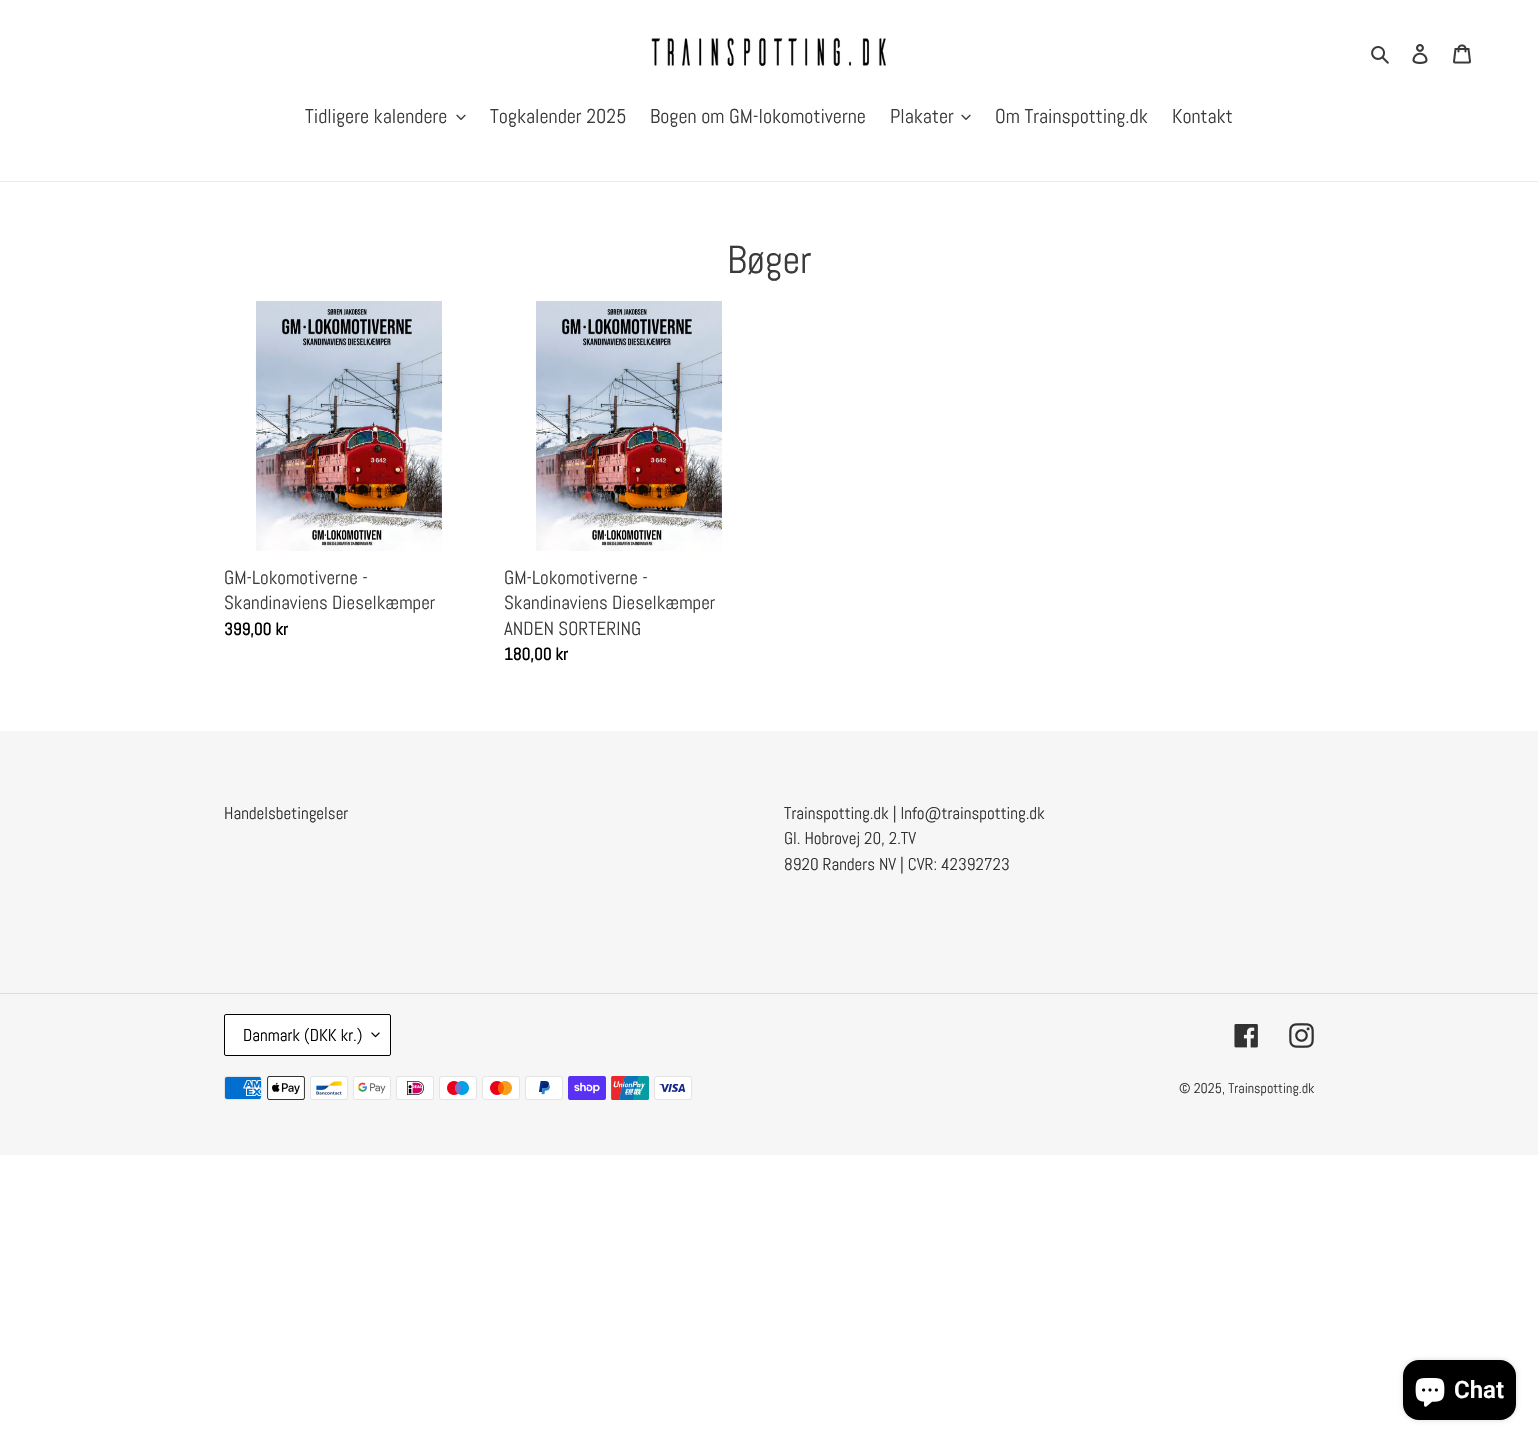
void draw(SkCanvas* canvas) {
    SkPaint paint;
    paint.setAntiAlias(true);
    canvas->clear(0xFFFFFFFF);
    canvas->drawImageRect(SkImages::DeferredFromEncodedData(SkData::MakeFromFileName("img1.png")), SkRect::MakeXYWH(651, 37, 236, 31), SkSamplingOptions());
    canvas->drawImageRect(SkImages::DeferredFromEncodedData(SkData::MakeFromFileName("img2.png")), SkRect::MakeXYWH(1371, 46, 18, 18), SkSamplingOptions());
    canvas->drawImageRect(SkImages::DeferredFromEncodedData(SkData::MakeFromFileName("img3.png")), SkRect::MakeXYWH(1412, 44, 16, 20), SkSamplingOptions());
    canvas->drawImageRect(SkImages::DeferredFromEncodedData(SkData::MakeFromFileName("img4.png")), SkRect::MakeXYWH(1453, 44, 18, 20), SkSamplingOptions());
    paint.setColor(0xFFEBEBEB);
    canvas->drawRect(SkRect::MakeXYWH(0, 181, 1538, 1), paint);
    SkFont font1(fontMgr->matchFamilyStyle("Abel", SkFontStyle::Normal()), 20);
    font1.setSubpixel(true);
    paint.setColor(0xFF3A3A3A);
    canvas->drawString("Tidligere kalendere", 305, 123, font1, paint);
    canvas->drawImageRect(SkImages::DeferredFromEncodedData(SkData::MakeFromFileName("img5.png")), SkRect::MakeXYWH(456, 114, 10, 6), SkSamplingOptions());
    canvas->drawString("Togkalender 2025", 490, 123, font1, paint);
    canvas->drawString("Bogen om GM-lokomotiverne", 650, 123, font1, paint);
    canvas->drawString("Plakater", 890, 123, font1, paint);
    canvas->drawImageRect(SkImages::DeferredFromEncodedData(SkData::MakeFromFileName("img5.png")), SkRect::MakeXYWH(961, 114, 10, 6), SkSamplingOptions());
    canvas->drawString("Om Trainspotting.dk", 995, 123, font1, paint);
    canvas->drawString("Kontakt", 1172, 123, font1, paint);
    SkFont font2(fontMgr->matchFamilyStyle("Abel", SkFontStyle::Normal()), 39);
    font2.setSubpixel(true);
    canvas->drawString("Bøger", 727, 273, font2, paint);
    canvas->drawImageRect(SkImages::DeferredFromEncodedData(SkData::MakeFromFileName("img6.png")), SkRect::MakeXYWH(255, 301, 187, 250), SkSamplingOptions());
    SkFont font3(fontMgr->matchFamilyStyle("Abel", SkFontStyle::Normal()), 19);
    font3.setSubpixel(true);
    canvas->drawString("GM-Lokomotiverne -", 224, 584, font3, paint);
    canvas->drawString("Skandinaviens Dieselkæmper", 224, 609, font3, paint);
    SkFont font4(fontMgr->matchFamilyStyle("Abel", SkFontStyle::Bold()), 17);
    font4.setSubpixel(true);
    paint.setColor(0xFF000000);
    canvas->drawString("399,00 kr", 224, 635, font4, paint);
    canvas->drawImageRect(SkImages::DeferredFromEncodedData(SkData::MakeFromFileName("img7.png")), SkRect::MakeXYWH(535, 301, 187, 250), SkSamplingOptions());
    paint.setColor(0xFF3A3A3A);
    canvas->drawString("GM-Lokomotiverne -", 504, 584, font3, paint);
    canvas->drawString("Skandinaviens Dieselkæmper", 504, 609, font3, paint);
    canvas->drawString("ANDEN SORTERING", 504, 635, font3, paint);
    paint.setColor(0xFF000000);
    canvas->drawString("180,00 kr", 504, 660, font4, paint);
    paint.setColor(0xFFF6F6F6);
    canvas->drawRect(SkRect::MakeXYWH(0, 731, 1538, 424), paint);
    SkFont font5(fontMgr->matchFamilyStyle("Abel", SkFontStyle::Normal()), 17);
    font5.setSubpixel(true);
    paint.setColor(0xFF333232);
    canvas->drawString("Handelsbetingelser", 224, 819, font5, paint);
    canvas->drawString("Trainspotting.dk | Info@trainspotting.dk", 784, 819, font5, paint);
    canvas->drawString("Gl. Hobrovej 20, 2.TV", 784, 844, font5, paint);
    canvas->drawString("8920 Randers NV | CVR: 42392723", 784, 870, font5, paint);
    paint.setColor(0xFFDDDDDD);
    canvas->drawRect(SkRect::MakeXYWH(0, 993, 1538, 1), paint);
    paint.setColor(0xFFFFFFFF);
    canvas->drawRoundRect(SkRect::MakeXYWH(224, 1014, 167, 42), 2, 2, paint);
    canvas->drawImageRect(SkImages::DeferredFromEncodedData(SkData::MakeFromFileName("img8.png")), SkRect::MakeXYWH(371, 1032, 9, 6), SkSamplingOptions());
    paint.setStyle(SkPaint::kStroke_Style);
    paint.setStrokeWidth(1);
    paint.setColor(0xFF000000);
    canvas->drawRoundRect(SkRect::MakeXYWH(224.5f, 1014.5f, 166, 41), 1.5f, 1.5f, paint);
    paint.setStyle(SkPaint::kFill_Style);
    canvas->drawString("Danmark (DKK kr.)", 243, 1041, font5, paint);
    canvas->drawImageRect(SkImages::DeferredFromEncodedData(SkData::MakeFromFileName("img9.png")), SkRect::MakeXYWH(1234, 1024, 24, 24), SkSamplingOptions());
    canvas->drawImageRect(SkImages::DeferredFromEncodedData(SkData::MakeFromFileName("img10.png")), SkRect::MakeXYWH(1289, 1023, 25, 25), SkSamplingOptions());
    canvas->drawImageRect(SkImages::DeferredFromEncodedData(SkData::MakeFromFileName("img11.png")), SkRect::MakeXYWH(224, 1076, 38, 24), SkSamplingOptions());
    canvas->drawImageRect(SkImages::DeferredFromEncodedData(SkData::MakeFromFileName("img12.png")), SkRect::MakeXYWH(267, 1076, 38, 24), SkSamplingOptions());
    canvas->drawImageRect(SkImages::DeferredFromEncodedData(SkData::MakeFromFileName("img13.png")), SkRect::MakeXYWH(310, 1076, 38, 24), SkSamplingOptions());
    canvas->drawImageRect(SkImages::DeferredFromEncodedData(SkData::MakeFromFileName("img14.png")), SkRect::MakeXYWH(353, 1076, 38, 24), SkSamplingOptions());
    canvas->drawImageRect(SkImages::DeferredFromEncodedData(SkData::MakeFromFileName("img15.png")), SkRect::MakeXYWH(396, 1076, 38, 24), SkSamplingOptions());
    canvas->drawImageRect(SkImages::DeferredFromEncodedData(SkData::MakeFromFileName("img16.png")), SkRect::MakeXYWH(439, 1076, 38, 24), SkSamplingOptions());
    canvas->drawImageRect(SkImages::DeferredFromEncodedData(SkData::MakeFromFileName("img17.png")), SkRect::MakeXYWH(482, 1076, 38, 24), SkSamplingOptions());
    canvas->drawImageRect(SkImages::DeferredFromEncodedData(SkData::MakeFromFileName("img18.png")), SkRect::MakeXYWH(525, 1076, 38, 24), SkSamplingOptions());
    canvas->drawImageRect(SkImages::DeferredFromEncodedData(SkData::MakeFromFileName("img19.png")), SkRect::MakeXYWH(568, 1076, 38, 24), SkSamplingOptions());
    canvas->drawImageRect(SkImages::DeferredFromEncodedData(SkData::MakeFromFileName("img20.png")), SkRect::MakeXYWH(611, 1076, 38, 24), SkSamplingOptions());
    canvas->drawImageRect(SkImages::DeferredFromEncodedData(SkData::MakeFromFileName("img21.png")), SkRect::MakeXYWH(654, 1076, 38, 24), SkSamplingOptions());
    SkFont font6(fontMgr->matchFamilyStyle("Abel", SkFontStyle::Normal()), 14);
    font6.setSubpixel(true);
    paint.setColor(0xFF333232);
    canvas->drawString("© 2025, Trainspotting.dk", 1179, 1093, font6, paint);
    paint.setColor(0x26000000);
    paint.setMaskFilter(SkMaskFilter::MakeBlur(kNormal_SkBlurStyle, 2.5f));
    canvas->drawRoundRect(SkRect::MakeXYWH(1403, 1360, 113, 60), 16, 16, paint);
    paint.setMaskFilter(nullptr);
    paint.setColor(0xFF000000);
    canvas->drawRoundRect(SkRect::MakeXYWH(1403, 1360, 113, 60), 16, 16, paint);
    canvas->drawImageRect(SkImages::DeferredFromEncodedData(SkData::MakeFromFileName("img22.png")), SkRect::MakeXYWH(1415, 1378, 30, 29), SkSamplingOptions());
    SkFont font7(fontMgr->matchFamilyStyle("Roboto", SkFontStyle(600, SkFontStyle::kNormal_Width, SkFontStyle::kUpright_Slant)), 24);
    font7.setSubpixel(true);
    paint.setColor(0xFFFFFFFF);
    canvas->drawString("Chat", 1454, 1398, font7, paint);
}
